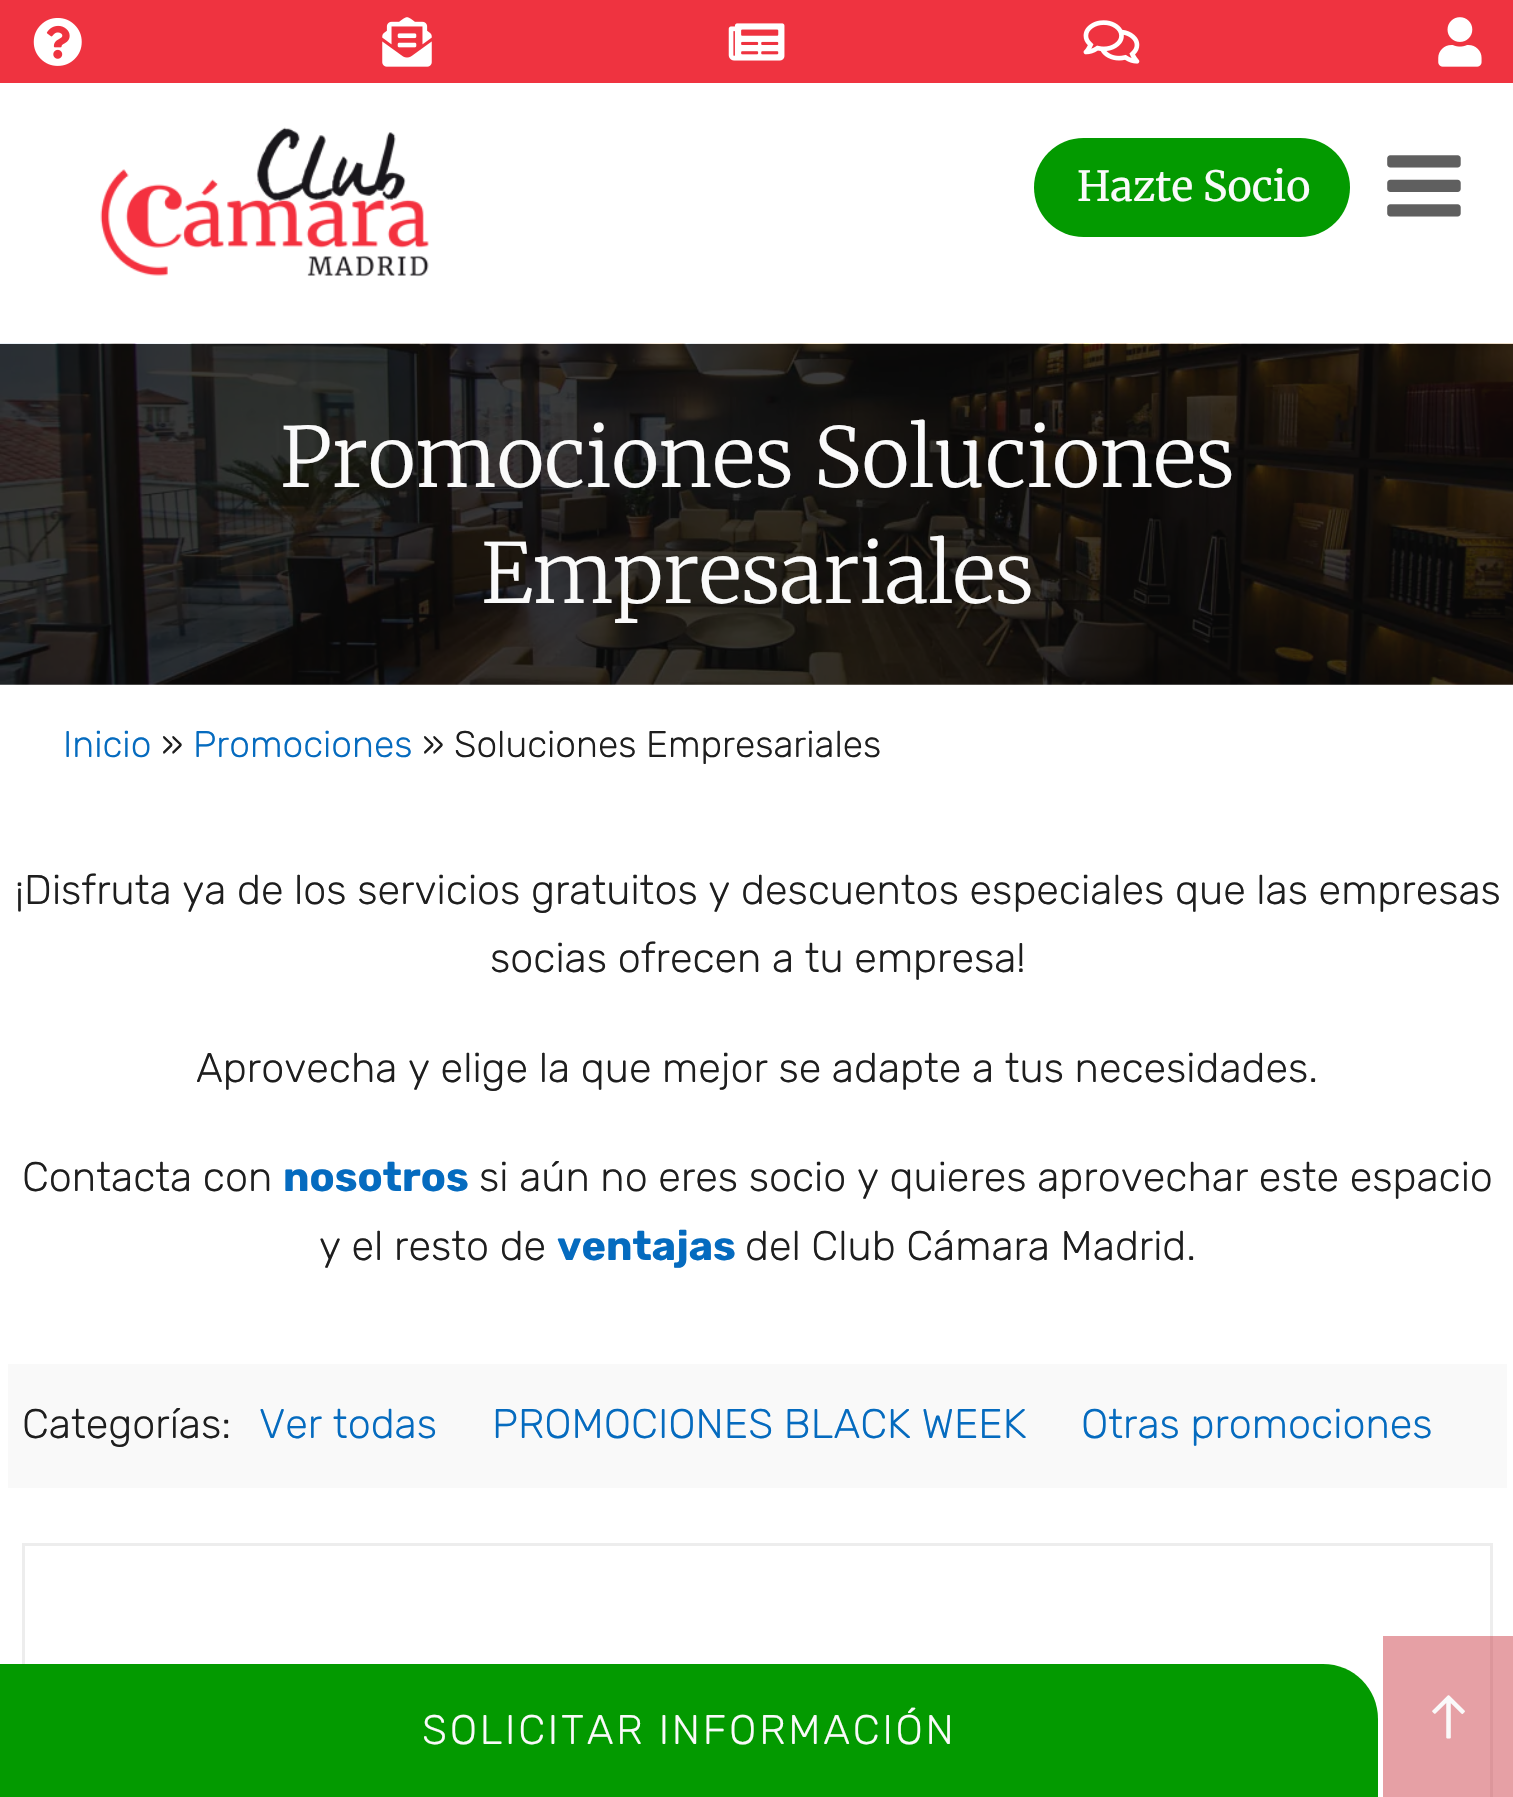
void draw(SkCanvas* canvas) {
    SkPaint paint;
    paint.setAntiAlias(true);
    auto spacedText = [&](const char* s, float x, float y, const SkFont& font, const SkPaint& ink, float letter, float word) {
        std::vector<SkGlyphID> glyphs(font.countText(s, strlen(s), SkTextEncoding::kUTF8));
        std::vector<float> xs(glyphs.size());
        font.textToGlyphs(s, strlen(s), SkTextEncoding::kUTF8, glyphs);
        font.getXPos(glyphs, xs, x);
        float extra = 0;
        for (size_t i = 0; i < glyphs.size(); i++) {
            xs[i] += extra;
            extra += letter + word * (glyphs[i] == font.unicharToGlyph(' '));
        }
        canvas->drawTextBlob(SkTextBlob::MakeFromPosHGlyphs(glyphs, xs, y, font), 0, 0, ink);
    };
    canvas->clear(0xFFFFFFFF);
    paint.setColor(0xFFEF3340);
    canvas->drawRect(SkRect::MakeXYWH(0, 0, 1513, 83), paint);
    canvas->drawImageRect(SkImages::DeferredFromEncodedData(SkData::MakeFromFileName("img1.png")), SkRect::MakeXYWH(33, 18, 49, 48), SkSamplingOptions());
    canvas->drawImageRect(SkImages::DeferredFromEncodedData(SkData::MakeFromFileName("img2.png")), SkRect::MakeXYWH(382, 17, 50, 50), SkSamplingOptions());
    canvas->drawImageRect(SkImages::DeferredFromEncodedData(SkData::MakeFromFileName("img3.png")), SkRect::MakeXYWH(728, 23, 57, 38), SkSamplingOptions());
    canvas->drawImageRect(SkImages::DeferredFromEncodedData(SkData::MakeFromFileName("img4.png")), SkRect::MakeXYWH(1083, 20, 57, 44), SkSamplingOptions());
    canvas->drawImageRect(SkImages::DeferredFromEncodedData(SkData::MakeFromFileName("img5.png")), SkRect::MakeXYWH(1438, 17, 44, 50), SkSamplingOptions());
    canvas->drawImageRect(SkImages::DeferredFromEncodedData(SkData::MakeFromFileName("img6.png")), SkRect::MakeXYWH(100, 127, 329, 150), SkSamplingOptions());
    paint.setColor(0xFF039A00);
    canvas->drawRoundRect(SkRect::MakeXYWH(1034, 138, 316, 99), 49.5f, 49.5f, paint);
    SkFont font1(fontMgr->matchFamilyStyle("Merriweather", SkFontStyle::Normal()), 41.5f);
    font1.setSubpixel(true);
    paint.setColor(0xFFFAFAFA);
    canvas->drawString("Hazte Socio", 1077, 201, font1, paint);
    canvas->drawImageRect(SkImages::DeferredFromEncodedData(SkData::MakeFromFileName("img7.png")), SkRect::MakeXYWH(1387, 155, 74, 62), SkSamplingOptions());
    canvas->drawImageRect(SkImages::DeferredFromEncodedData(SkData::MakeFromFileName("img8.png")), SkRect::MakeXYWH(0, 343, 1513, 342), SkSamplingOptions());
    SkFont font2(fontMgr->matchFamilyStyle("Merriweather", SkFontStyle(300, SkFontStyle::kNormal_Width, SkFontStyle::kUpright_Slant)), 82.5f);
    font2.setSubpixel(true);
    canvas->drawString("Promociones Soluciones", 280, 487, font2, paint);
    canvas->drawString("Empresariales", 481, 603, font2, paint);
    SkFont font3(fontMgr->matchFamilyStyle("Rubik", SkFontStyle(300, SkFontStyle::kNormal_Width, SkFontStyle::kUpright_Slant)), 37.1f);
    font3.setSubpixel(true);
    paint.setColor(0xFF056BBF);
    canvas->drawString("Inicio", 63, 757, font3, paint);
    paint.setColor(0xFF1E1E1E);
    canvas->drawString("»", 161, 757, font3, paint);
    paint.setColor(0xFF056BBF);
    canvas->drawString("Promociones", 193, 757, font3, paint);
    paint.setColor(0xFF1E1E1E);
    canvas->drawString("» Soluciones Empresariales", 422, 757, font3, paint);
    SkFont font4(fontMgr->matchFamilyStyle("Rubik", SkFontStyle(300, SkFontStyle::kNormal_Width, SkFontStyle::kUpright_Slant)), 41.25f);
    font4.setSubpixel(true);
    canvas->drawString("¡Disfruta ya de los servicios gratuitos y descuentos especiales que las empresas", 15, 904, font4, paint);
    canvas->drawString("socias ofrecen a tu empresa!", 490, 972, font4, paint);
    canvas->drawString("Aprovecha y elige la que mejor se adapte a tus necesidades.", 196, 1082, font4, paint);
    canvas->drawString("Contacta con", 22, 1191, font4, paint);
    SkFont font5(fontMgr->matchFamilyStyle("Rubik", SkFontStyle::Bold()), 41.25f);
    font5.setSubpixel(true);
    paint.setColor(0xFF056BBF);
    canvas->drawString("nosotros", 283, 1191, font5, paint);
    paint.setColor(0xFF1E1E1E);
    canvas->drawString("si aún no eres socio y quieres aprovechar este espacio", 479, 1191, font4, paint);
    canvas->drawString("y el resto de", 319, 1260, font4, paint);
    paint.setColor(0xFF056BBF);
    canvas->drawString("ventajas", 557, 1260, font5, paint);
    paint.setColor(0xFF1E1E1E);
    canvas->drawString("del Club Cámara Madrid.", 745, 1260, font4, paint);
    paint.setColor(0xFFF9F9F9);
    canvas->drawRect(SkRect::MakeXYWH(8, 1364, 1499, 124), paint);
    paint.setColor(0xFF1E1E1E);
    canvas->drawString("Categorías:", 22, 1438, font4, paint);
    paint.setColor(0xFF056BBF);
    canvas->drawString("Ver todas", 259, 1438, font4, paint);
    canvas->drawString("PROMOCIONES BLACK WEEK", 492, 1438, font4, paint);
    canvas->drawString("Otras promociones", 1081, 1438, font4, paint);
    paint.setStyle(SkPaint::kStroke_Style);
    paint.setStrokeWidth(3);
    paint.setColor(0xFFEDEDED);
    canvas->drawRect(SkRect::MakeXYWH(23.5f, 1544.5f, 1468, 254), paint);
    paint.setStyle(SkPaint::kFill_Style);
    paint.setColor(0x78CA3540);
    canvas->drawRect(SkRect::MakeXYWH(1383, 1636, 130, 161), paint);
    canvas->drawImageRect(SkImages::DeferredFromEncodedData(SkData::MakeFromFileName("img9.png")), SkRect::MakeXYWH(1432, 1695, 33, 44), SkSamplingOptions());
    paint.setColor(0xFF039A00);
    canvas->drawPath(SkPathBuilder().moveTo(0, 1664).lineTo(1323, 1664).cubicTo(1353.5f, 1664, 1378, 1688.5f, 1378, 1719).lineTo(1378, 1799).lineTo(0, 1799).close().detach(), paint);
    paint.setColor(0xFFFAFAFA);
    spacedText("SOLICITAR INFORMACIÓN", 422, 1744, font4, paint, 2.75f, 0);
}
